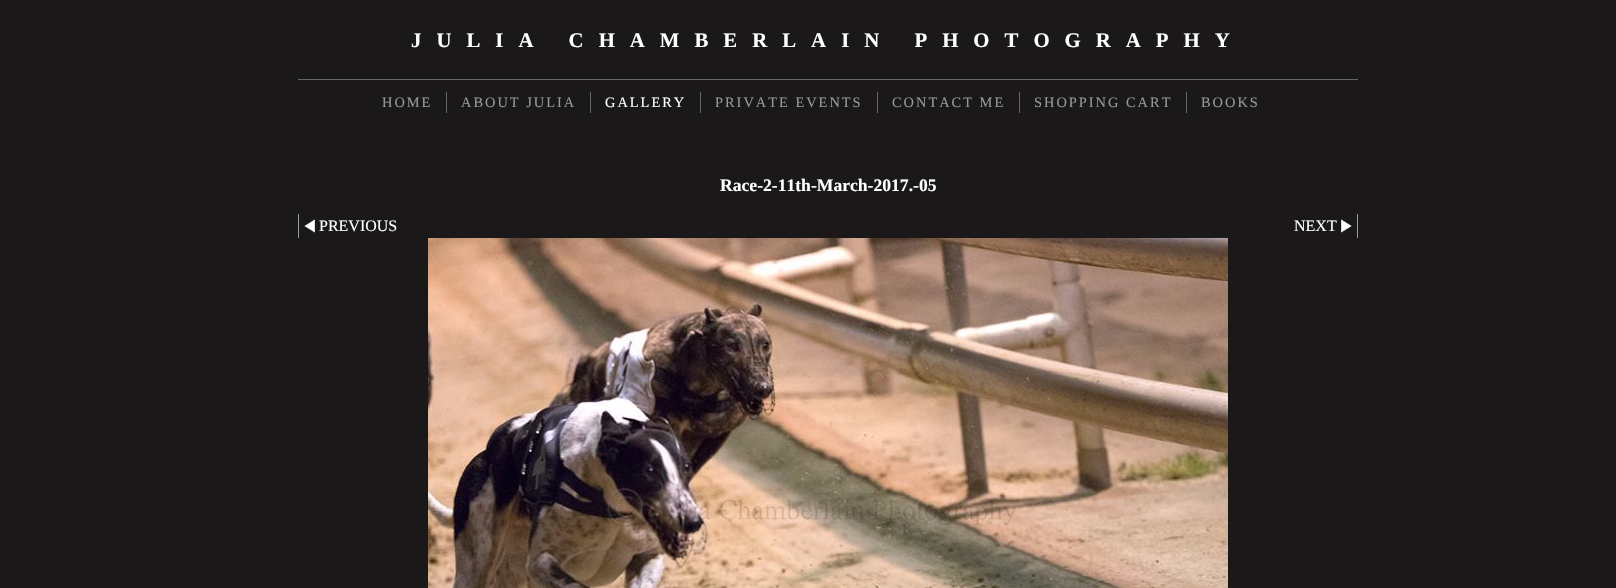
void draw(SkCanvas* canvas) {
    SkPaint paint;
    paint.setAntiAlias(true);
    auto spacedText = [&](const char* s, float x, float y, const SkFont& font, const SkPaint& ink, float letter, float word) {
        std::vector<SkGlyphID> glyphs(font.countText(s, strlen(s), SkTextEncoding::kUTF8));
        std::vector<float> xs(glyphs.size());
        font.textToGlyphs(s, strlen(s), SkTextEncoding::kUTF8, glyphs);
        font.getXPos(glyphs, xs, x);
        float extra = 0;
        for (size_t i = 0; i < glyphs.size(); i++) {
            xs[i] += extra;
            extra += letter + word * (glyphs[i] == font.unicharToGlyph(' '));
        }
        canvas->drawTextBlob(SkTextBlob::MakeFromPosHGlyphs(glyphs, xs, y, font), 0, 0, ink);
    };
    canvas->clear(0xFF1A1818);
    paint.setColor(0xFF666666);
    canvas->drawRect(SkRect::MakeXYWH(298, 79, 1060, 1), paint);
    SkFont font1(fontMgr->matchFamilyStyle("Liberation Serif", SkFontStyle::Bold()), 20.8f);
    font1.setSubpixel(true);
    paint.setColor(0xFFFFFFFF);
    spacedText("JULIA CHAMBERLAIN PHOTOGRAPHY", 411, 47, font1, paint, 15, 0);
    SkFont font2(fontMgr->matchFamilyStyle("Liberation Serif", SkFontStyle::Normal()), 14.4f);
    font2.setSubpixel(true);
    paint.setColor(0xFF999999);
    spacedText("HOME", 382, 107, font2, paint, 2, 0);
    paint.setColor(0xFF666666);
    canvas->drawRect(SkRect::MakeXYWH(446, 92, 1, 21), paint);
    paint.setColor(0xFF999999);
    spacedText("ABOUT JULIA", 461, 107, font2, paint, 2, 0);
    paint.setColor(0xFF666666);
    canvas->drawRect(SkRect::MakeXYWH(590, 92, 1, 21), paint);
    paint.setColor(0xFFFFFFFF);
    spacedText("GALLERY", 605, 107, font2, paint, 2, 0);
    paint.setColor(0xFF666666);
    canvas->drawRect(SkRect::MakeXYWH(700, 92, 1, 21), paint);
    paint.setColor(0xFF999999);
    spacedText("PRIVATE EVENTS", 715, 107, font2, paint, 2, 0);
    paint.setColor(0xFF666666);
    canvas->drawRect(SkRect::MakeXYWH(877, 92, 1, 21), paint);
    paint.setColor(0xFF999999);
    spacedText("CONTACT ME", 892, 107, font2, paint, 2, 0);
    paint.setColor(0xFF666666);
    canvas->drawRect(SkRect::MakeXYWH(1019, 92, 1, 21), paint);
    paint.setColor(0xFF999999);
    spacedText("SHOPPING CART", 1034, 107, font2, paint, 2, 0);
    paint.setColor(0xFF666666);
    canvas->drawRect(SkRect::MakeXYWH(1186, 92, 1, 21), paint);
    paint.setColor(0xFF999999);
    spacedText("BOOKS", 1201, 107, font2, paint, 2, 0);
    SkFont font3(fontMgr->matchFamilyStyle("Liberation Serif", SkFontStyle::Bold()), 17.6f);
    font3.setSubpixel(true);
    paint.setColor(0xFFFFFFFF);
    canvas->drawString("Race-2-11th-March-2017.-05", 720, 191, font3, paint);
    paint.setColor(0xFF999999);
    canvas->drawRect(SkRect::MakeXYWH(298, 214, 1, 24), paint);
    canvas->drawImageRect(SkImages::DeferredFromEncodedData(SkData::MakeFromFileName("img1.png")), SkRect::MakeXYWH(304, 219, 11, 14), SkSamplingOptions());
    SkFont font4(fontMgr->matchFamilyStyle("Liberation Serif", SkFontStyle::Normal()), 16);
    font4.setSubpixel(true);
    paint.setColor(0xFFFFFFFF);
    canvas->drawString("PREVIOUS", 319, 231, font4, paint);
    paint.setColor(0xFF999999);
    canvas->drawRect(SkRect::MakeXYWH(1357, 214, 1, 24), paint);
    paint.setColor(0xFFFFFFFF);
    canvas->drawString("NEXT", 1294, 231, font4, paint);
    canvas->drawImageRect(SkImages::DeferredFromEncodedData(SkData::MakeFromFileName("img2.png")), SkRect::MakeXYWH(1341, 219, 11, 14), SkSamplingOptions());
    canvas->drawImageRect(SkImages::DeferredFromEncodedData(SkData::MakeFromFileName("img3.png")), SkRect::MakeXYWH(428, 238, 800, 350), SkSamplingOptions());
}
